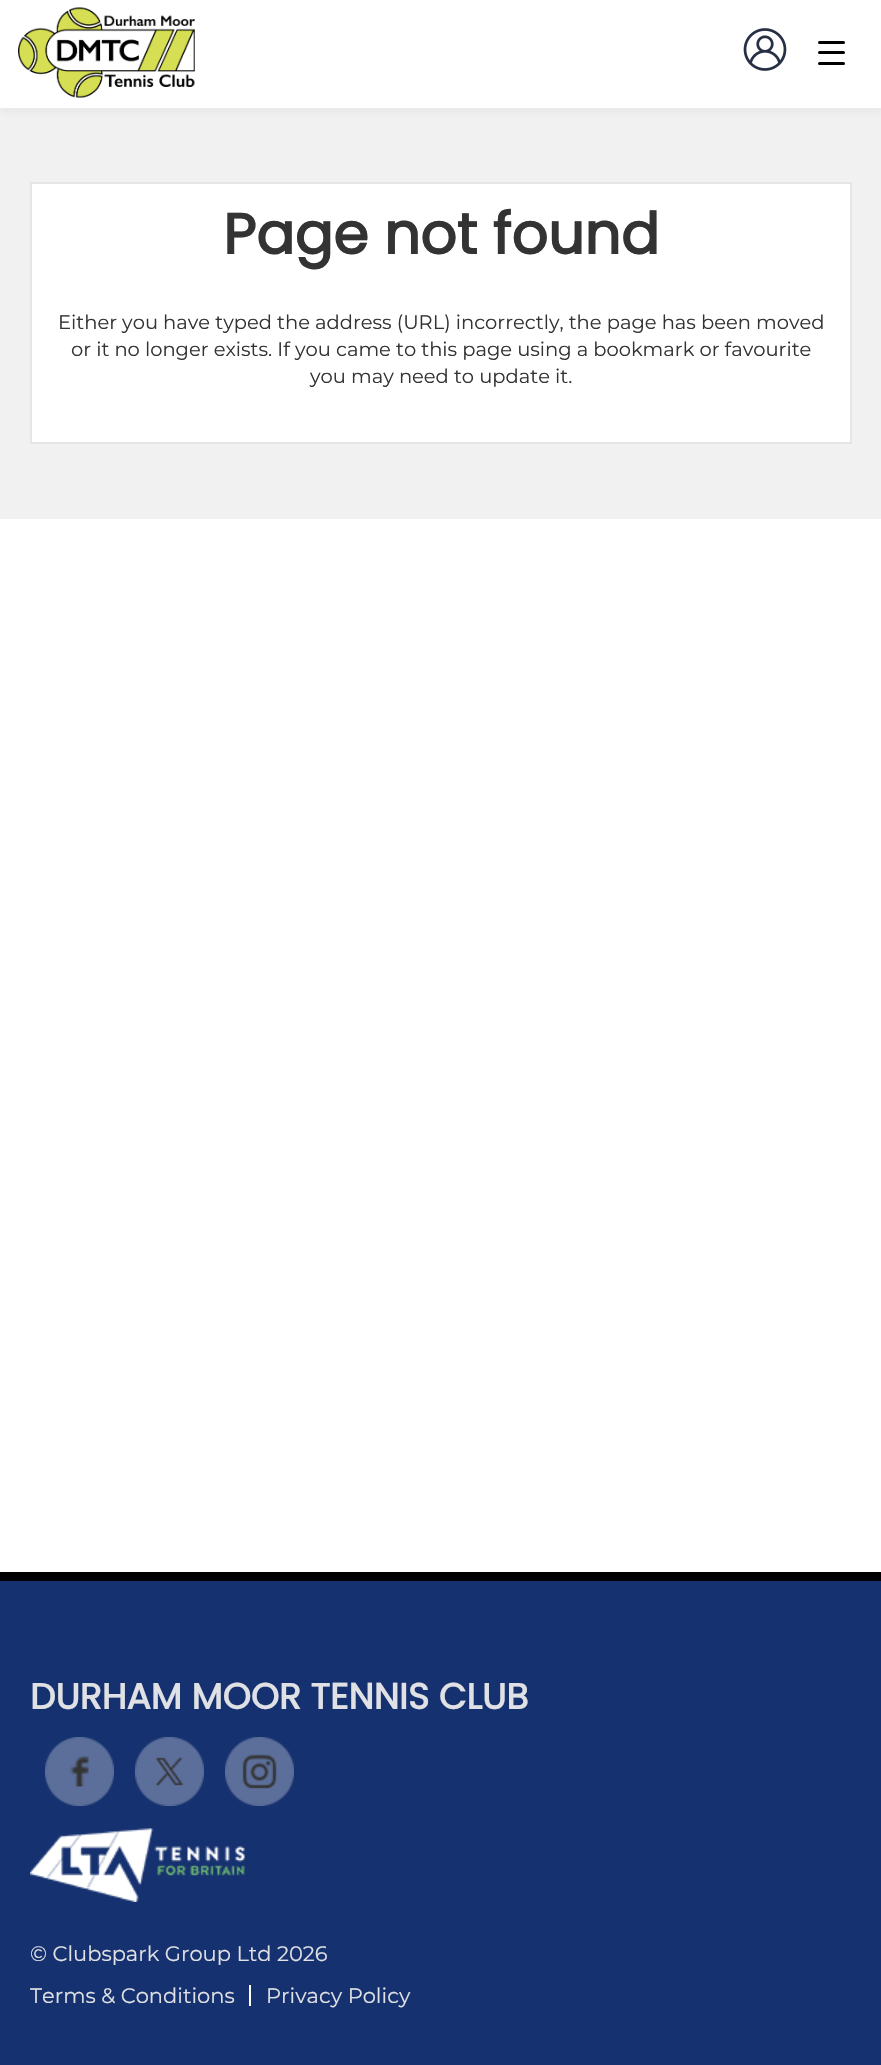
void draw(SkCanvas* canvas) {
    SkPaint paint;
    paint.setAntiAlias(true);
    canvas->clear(0xFFFFFFFF);
    paint.setColor(0xFFF1F1F1);
    canvas->drawRect(SkRect::MakeXYWH(0, 108, 881, 411), paint);
    paint.setColor(0x0F141D37);
    paint.setMaskFilter(SkMaskFilter::MakeBlur(kNormal_SkBlurStyle, 4.5f));
    canvas->drawRect(SkRect::MakeXYWH(0, 3, 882, 108), paint);
    paint.setMaskFilter(nullptr);
    paint.setColor(0xFFFFFFFF);
    canvas->drawRect(SkRect::MakeXYWH(0, 0, 881, 108), paint);
    canvas->drawImageRect(SkImages::DeferredFromEncodedData(SkData::MakeFromFileName("img1.png")), SkRect::MakeXYWH(18, 7, 177, 91), SkSamplingOptions());
    canvas->drawImageRect(SkImages::DeferredFromEncodedData(SkData::MakeFromFileName("img2.png")), SkRect::MakeXYWH(743, 28, 44, 43), SkSamplingOptions());
    paint.setColor(0xFF000000);
    canvas->drawRoundRect(SkRect::MakeXYWH(818, 41, 27, 3), 1.5f, 1.5f, paint);
    canvas->drawRoundRect(SkRect::MakeXYWH(818, 51, 27, 3), 1.5f, 1.5f, paint);
    canvas->drawRoundRect(SkRect::MakeXYWH(818, 62, 27, 3), 1.5f, 1.5f, paint);
    paint.setColor(0xFFFFFFFF);
    canvas->drawRect(SkRect::MakeXYWH(31, 183, 820, 260), paint);
    paint.setStyle(SkPaint::kStroke_Style);
    paint.setStrokeWidth(2);
    paint.setColor(0xFFE5E5E5);
    canvas->drawRect(SkRect::MakeXYWH(31, 183, 820, 260), paint);
    SkFont font1(fontMgr->matchFamilyStyle("Poppins", SkFontStyle::Bold()), 57);
    font1.setSubpixel(true);
    paint.setStyle(SkPaint::kFill_Style);
    paint.setColor(0xFF333333);
    canvas->drawString("Page not found", 223, 254, font1, paint);
    SkFont font2(fontMgr->matchFamilyStyle("Montserrat", SkFontStyle(100, SkFontStyle::kNormal_Width, SkFontStyle::kUpright_Slant)), 19.5f);
    font2.setSubpixel(true);
    canvas->drawString("Either you have typed the address (URL) incorrectly, the page has been moved", 58, 329, font2, paint);
    canvas->drawString("or it no longer exists. If you came to this page using a bookmark or favourite", 71, 356, font2, paint);
    canvas->drawString("you may need to update it.", 310, 383, font2, paint);
    paint.setColor(0xFF16316F);
    canvas->drawRect(SkRect::MakeXYWH(0, 1581, 881, 484), paint);
    paint.setColor(0xFF000000);
    canvas->drawRect(SkRect::MakeXYWH(0, 1572, 881, 9), paint);
    SkFont font3(fontMgr->matchFamilyStyle("Poppins", SkFontStyle::Bold()), 36);
    font3.setSubpixel(true);
    paint.setColor(0xFFDFE1E4);
    canvas->drawString("DURHAM MOOR TENNIS CLUB", 30, 1709, font3, paint);
    canvas->drawImageRect(SkImages::DeferredFromEncodedData(SkData::MakeFromFileName("img3.png")), SkRect::MakeXYWH(45, 1737, 69, 69), SkSamplingOptions());
    canvas->drawImageRect(SkImages::DeferredFromEncodedData(SkData::MakeFromFileName("img4.png")), SkRect::MakeXYWH(135, 1737, 69, 69), SkSamplingOptions());
    canvas->drawImageRect(SkImages::DeferredFromEncodedData(SkData::MakeFromFileName("img5.png")), SkRect::MakeXYWH(225, 1737, 69, 69), SkSamplingOptions());
    canvas->drawImageRect(SkImages::DeferredFromEncodedData(SkData::MakeFromFileName("img6.png")), SkRect::MakeXYWH(30, 1828, 215, 74), SkSamplingOptions());
    SkFont font4(fontMgr->matchFamilyStyle("Montserrat", SkFontStyle(100, SkFontStyle::kNormal_Width, SkFontStyle::kUpright_Slant)), 21);
    font4.setSubpixel(true);
    canvas->drawString("© Clubspark Group Ltd 2026", 30, 1961, font4, paint);
    paint.setColor(0xFFFFFFFF);
    canvas->drawRect(SkRect::MakeXYWH(249, 1985, 2, 21), paint);
    paint.setColor(0xFFDFE1E4);
    canvas->drawString("Terms & Conditions", 30, 2003, font4, paint);
    canvas->drawString("Privacy Policy", 266, 2003, font4, paint);
}
